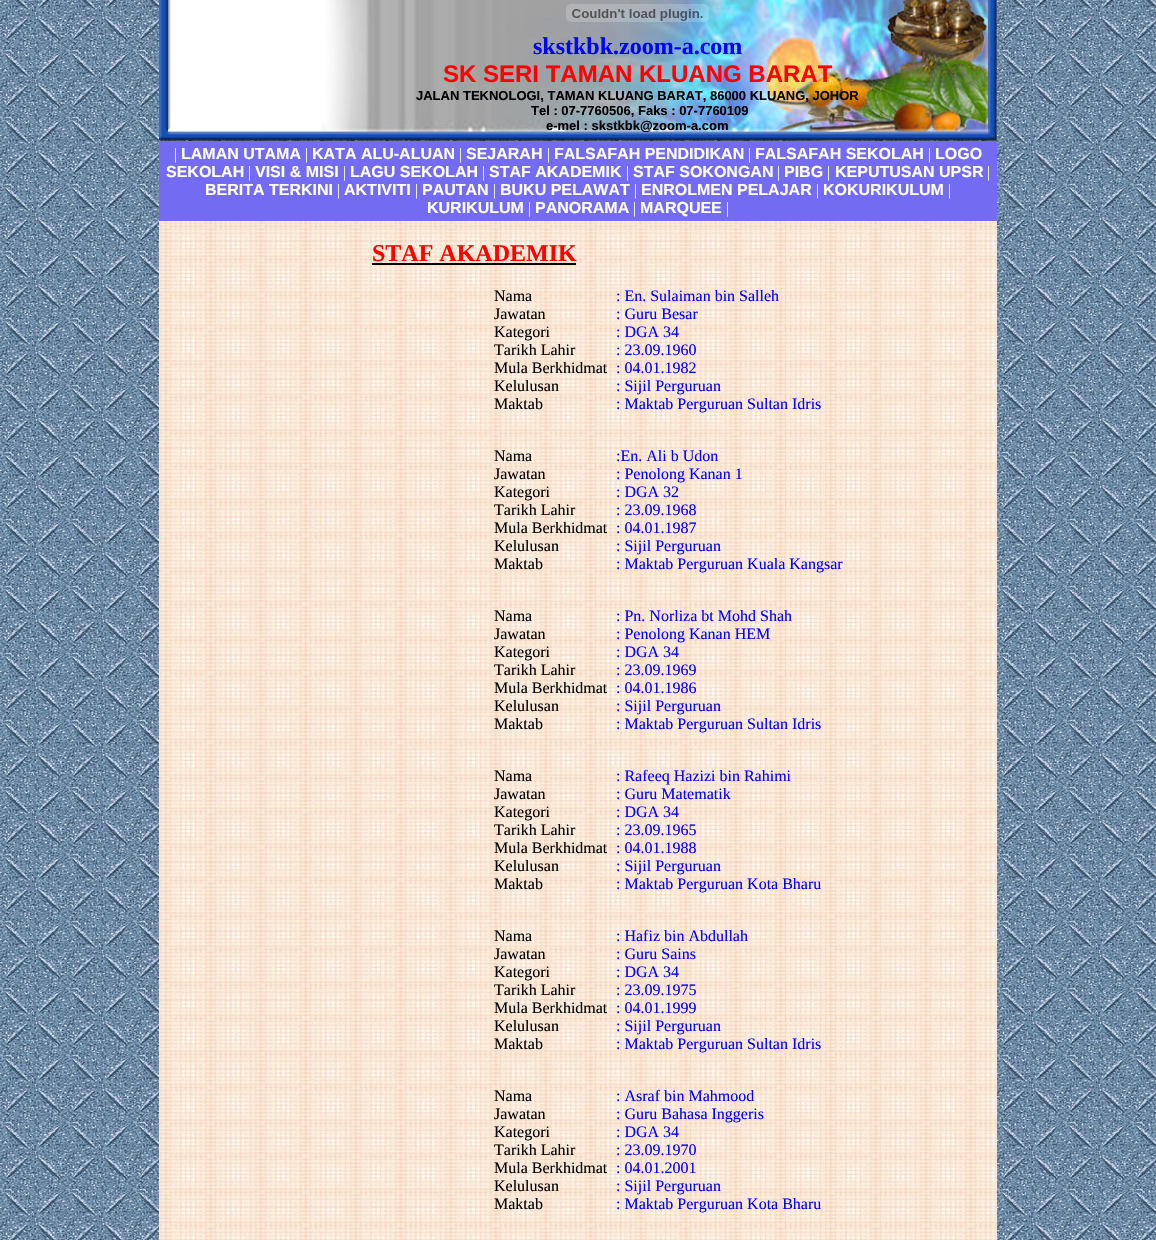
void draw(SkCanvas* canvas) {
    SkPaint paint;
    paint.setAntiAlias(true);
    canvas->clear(0xFFFFFFFF);
    canvas->drawImageRect(SkImages::DeferredFromEncodedData(SkData::MakeFromFileName("img1.png")), SkRect::MakeXYWH(159, 221, 838, 1019), SkSamplingOptions());
    canvas->drawImageRect(SkImages::DeferredFromEncodedData(SkData::MakeFromFileName("img2.png")), SkRect::MakeXYWH(0, 0, 159, 1240), SkSamplingOptions());
    canvas->drawImageRect(SkImages::DeferredFromEncodedData(SkData::MakeFromFileName("img3.png")), SkRect::MakeXYWH(159, 0, 838, 141), SkSamplingOptions());
    canvas->drawImageRect(SkImages::DeferredFromEncodedData(SkData::MakeFromFileName("img4.png")), SkRect::MakeXYWH(566, 4, 143, 18), SkSamplingOptions());
    SkFont font1(fontMgr->matchFamilyStyle("Liberation Serif", SkFontStyle::Bold()), 24);
    font1.setSubpixel(true);
    paint.setColor(0xFF0000FF);
    canvas->drawString("skstkbk.zoom-a.com", 533, 54, font1, paint);
    SkFont font2(fontMgr->matchFamilyStyle("Liberation Sans", SkFontStyle::Bold()), 24);
    font2.setSubpixel(true);
    paint.setColor(0xFFFF0000);
    canvas->drawString("SK SERI TAMAN KLUANG BARAT", 443, 82, font2, paint);
    SkFont font3(fontMgr->matchFamilyStyle("Liberation Sans", SkFontStyle::Bold()), 13);
    font3.setSubpixel(true);
    paint.setColor(0xFF000000);
    canvas->drawString("JALAN TEKNOLOGI, TAMAN KLUANG BARAT, 86000 KLUANG, JOHOR", 416, 100, font3, paint);
    canvas->drawString("Tel : 07-7760506, Faks : 07-7760109", 531, 115, font3, paint);
    canvas->drawString("e-mel : skstkbk@zoom-a.com", 546, 130, font3, paint);
    canvas->drawImageRect(SkImages::DeferredFromEncodedData(SkData::MakeFromFileName("img2.png")), SkRect::MakeXYWH(997, 0, 159, 1240), SkSamplingOptions());
    paint.setColor(0xFF736BF2);
    canvas->drawRect(SkRect::MakeXYWH(159, 141, 838, 80), paint);
    SkFont font4(fontMgr->matchFamilyStyle("Liberation Serif", SkFontStyle::Normal()), 16);
    font4.setSubpixel(true);
    paint.setColor(0xFFFFFFFF);
    canvas->drawString("|", 174, 159, font4, paint);
    SkFont font5(fontMgr->matchFamilyStyle("Liberation Sans", SkFontStyle::Bold()), 16);
    font5.setSubpixel(true);
    canvas->drawString("LAMAN UTAMA", 181, 159, font5, paint);
    canvas->drawString("|", 305, 159, font4, paint);
    canvas->drawString("KATA ALU-ALUAN", 312, 159, font5, paint);
    canvas->drawString("|", 459, 159, font4, paint);
    canvas->drawString("SEJARAH", 466, 159, font5, paint);
    canvas->drawString("|", 547, 159, font4, paint);
    canvas->drawString("FALSAFAH PENDIDIKAN", 554, 159, font5, paint);
    canvas->drawString("|", 748, 159, font4, paint);
    canvas->drawString("FALSAFAH SEKOLAH", 755, 159, font5, paint);
    canvas->drawString("|", 928, 159, font4, paint);
    canvas->drawString("LOGO", 935, 159, font5, paint);
    canvas->drawString("SEKOLAH", 166, 177, font5, paint);
    canvas->drawString("|", 248, 177, font4, paint);
    canvas->drawString("VISI & MISI", 255, 177, font5, paint);
    canvas->drawString("|", 343, 177, font4, paint);
    canvas->drawString("LAGU SEKOLAH", 350, 177, font5, paint);
    canvas->drawString("|", 482, 177, font4, paint);
    canvas->drawString("STAF AKADEMIK", 489, 177, font5, paint);
    canvas->drawString("|", 626, 177, font4, paint);
    canvas->drawString("STAF SOKONGAN", 633, 177, font5, paint);
    canvas->drawString("|", 777, 177, font4, paint);
    canvas->drawString("PIBG", 784, 177, font5, paint);
    canvas->drawString("|", 827, 177, font4, paint);
    canvas->drawString("KEPUTUSAN UPSR", 835, 177, font5, paint);
    canvas->drawString("|", 987, 177, font4, paint);
    canvas->drawString("BERITA TERKINI", 205, 195, font5, paint);
    canvas->drawString("|", 337, 195, font4, paint);
    canvas->drawString("AKTIVITI", 344, 195, font5, paint);
    canvas->drawString("|", 415, 195, font4, paint);
    canvas->drawString("PAUTAN", 422, 195, font5, paint);
    canvas->drawString("|", 493, 195, font4, paint);
    canvas->drawString("BUKU PELAWAT", 500, 195, font5, paint);
    canvas->drawString("|", 634, 195, font4, paint);
    canvas->drawString("ENROLMEN PELAJAR", 641, 195, font5, paint);
    canvas->drawString("|", 816, 195, font4, paint);
    canvas->drawString("KOKURIKULUM", 823, 195, font5, paint);
    canvas->drawString("|", 948, 195, font4, paint);
    canvas->drawString("KURIKULUM", 427, 213, font5, paint);
    canvas->drawString("|", 528, 213, font4, paint);
    canvas->drawString("PANORAMA", 535, 213, font5, paint);
    canvas->drawString("|", 633, 213, font4, paint);
    canvas->drawString("MARQUEE", 640, 213, font5, paint);
    canvas->drawString("|", 726, 213, font4, paint);
    paint.setColor(0xFFFF0000);
    canvas->drawString("STAF AKADEMIK", 372, 261, font1, paint);
    paint.setColor(0xFF000000);
    canvas->drawRect(SkRect::MakeXYWH(372, 263, 204, 2), paint);
    canvas->drawString("Nama", 494, 301, font4, paint);
    canvas->drawString("Jawatan", 494, 319, font4, paint);
    canvas->drawString("Kategori", 494, 337, font4, paint);
    canvas->drawString("Tarikh Lahir", 494, 355, font4, paint);
    canvas->drawString("Mula Berkhidmat", 494, 373, font4, paint);
    canvas->drawString("Kelulusan", 494, 391, font4, paint);
    canvas->drawString("Maktab", 494, 409, font4, paint);
    paint.setColor(0xFF0000FF);
    canvas->drawString(": En. Sulaiman bin Salleh", 616, 301, font4, paint);
    canvas->drawString(": Guru Besar", 616, 319, font4, paint);
    canvas->drawString(": DGA 34", 616, 337, font4, paint);
    canvas->drawString(": 23.09.1960", 616, 355, font4, paint);
    canvas->drawString(": 04.01.1982", 616, 373, font4, paint);
    canvas->drawString(": Sijil Perguruan", 616, 391, font4, paint);
    canvas->drawString(": Maktab Perguruan Sultan Idris", 616, 409, font4, paint);
    paint.setColor(0xFF000000);
    canvas->drawString("Nama", 494, 461, font4, paint);
    canvas->drawString("Jawatan", 494, 479, font4, paint);
    canvas->drawString("Kategori", 494, 497, font4, paint);
    canvas->drawString("Tarikh Lahir", 494, 515, font4, paint);
    canvas->drawString("Mula Berkhidmat", 494, 533, font4, paint);
    canvas->drawString("Kelulusan", 494, 551, font4, paint);
    canvas->drawString("Maktab", 494, 569, font4, paint);
    paint.setColor(0xFF0000FF);
    canvas->drawString(":En. Ali b Udon", 616, 461, font4, paint);
    canvas->drawString(": Penolong Kanan 1", 616, 479, font4, paint);
    canvas->drawString(": DGA 32", 616, 497, font4, paint);
    canvas->drawString(": 23.09.1968", 616, 515, font4, paint);
    canvas->drawString(": 04.01.1987", 616, 533, font4, paint);
    canvas->drawString(": Sijil Perguruan", 616, 551, font4, paint);
    canvas->drawString(": Maktab Perguruan Kuala Kangsar", 616, 569, font4, paint);
    paint.setColor(0xFF000000);
    canvas->drawString("Nama", 494, 621, font4, paint);
    canvas->drawString("Jawatan", 494, 639, font4, paint);
    canvas->drawString("Kategori", 494, 657, font4, paint);
    canvas->drawString("Tarikh Lahir", 494, 675, font4, paint);
    canvas->drawString("Mula Berkhidmat", 494, 693, font4, paint);
    canvas->drawString("Kelulusan", 494, 711, font4, paint);
    canvas->drawString("Maktab", 494, 729, font4, paint);
    paint.setColor(0xFF0000FF);
    canvas->drawString(": Pn. Norliza bt Mohd Shah", 616, 621, font4, paint);
    canvas->drawString(": Penolong Kanan HEM", 616, 639, font4, paint);
    canvas->drawString(": DGA 34", 616, 657, font4, paint);
    canvas->drawString(": 23.09.1969", 616, 675, font4, paint);
    canvas->drawString(": 04.01.1986", 616, 693, font4, paint);
    canvas->drawString(": Sijil Perguruan", 616, 711, font4, paint);
    canvas->drawString(": Maktab Perguruan Sultan Idris", 616, 729, font4, paint);
    paint.setColor(0xFF000000);
    canvas->drawString("Nama", 494, 781, font4, paint);
    canvas->drawString("Jawatan", 494, 799, font4, paint);
    canvas->drawString("Kategori", 494, 817, font4, paint);
    canvas->drawString("Tarikh Lahir", 494, 835, font4, paint);
    canvas->drawString("Mula Berkhidmat", 494, 853, font4, paint);
    canvas->drawString("Kelulusan", 494, 871, font4, paint);
    canvas->drawString("Maktab", 494, 889, font4, paint);
    paint.setColor(0xFF0000FF);
    canvas->drawString(": Rafeeq Hazizi bin Rahimi", 616, 781, font4, paint);
    canvas->drawString(": Guru Matematik", 616, 799, font4, paint);
    canvas->drawString(": DGA 34", 616, 817, font4, paint);
    canvas->drawString(": 23.09.1965", 616, 835, font4, paint);
    canvas->drawString(": 04.01.1988", 616, 853, font4, paint);
    canvas->drawString(": Sijil Perguruan", 616, 871, font4, paint);
    canvas->drawString(": Maktab Perguruan Kota Bharu", 616, 889, font4, paint);
    paint.setColor(0xFF000000);
    canvas->drawString("Nama", 494, 941, font4, paint);
    canvas->drawString("Jawatan", 494, 959, font4, paint);
    canvas->drawString("Kategori", 494, 977, font4, paint);
    canvas->drawString("Tarikh Lahir", 494, 995, font4, paint);
    canvas->drawString("Mula Berkhidmat", 494, 1013, font4, paint);
    canvas->drawString("Kelulusan", 494, 1031, font4, paint);
    canvas->drawString("Maktab", 494, 1049, font4, paint);
    paint.setColor(0xFF0000FF);
    canvas->drawString(": Hafiz bin Abdullah", 616, 941, font4, paint);
    canvas->drawString(": Guru Sains", 616, 959, font4, paint);
    canvas->drawString(": DGA 34", 616, 977, font4, paint);
    canvas->drawString(": 23.09.1975", 616, 995, font4, paint);
    canvas->drawString(": 04.01.1999", 616, 1013, font4, paint);
    canvas->drawString(": Sijil Perguruan", 616, 1031, font4, paint);
    canvas->drawString(": Maktab Perguruan Sultan Idris", 616, 1049, font4, paint);
    paint.setColor(0xFF000000);
    canvas->drawString("Nama", 494, 1101, font4, paint);
    canvas->drawString("Jawatan", 494, 1119, font4, paint);
    canvas->drawString("Kategori", 494, 1137, font4, paint);
    canvas->drawString("Tarikh Lahir", 494, 1155, font4, paint);
    canvas->drawString("Mula Berkhidmat", 494, 1173, font4, paint);
    canvas->drawString("Kelulusan", 494, 1191, font4, paint);
    canvas->drawString("Maktab", 494, 1209, font4, paint);
    paint.setColor(0xFF0000FF);
    canvas->drawString(": Asraf bin Mahmood", 616, 1101, font4, paint);
    canvas->drawString(": Guru Bahasa Inggeris", 616, 1119, font4, paint);
    canvas->drawString(": DGA 34", 616, 1137, font4, paint);
    canvas->drawString(": 23.09.1970", 616, 1155, font4, paint);
    canvas->drawString(": 04.01.2001", 616, 1173, font4, paint);
    canvas->drawString(": Sijil Perguruan", 616, 1191, font4, paint);
    canvas->drawString(": Maktab Perguruan Kota Bharu", 616, 1209, font4, paint);
}
